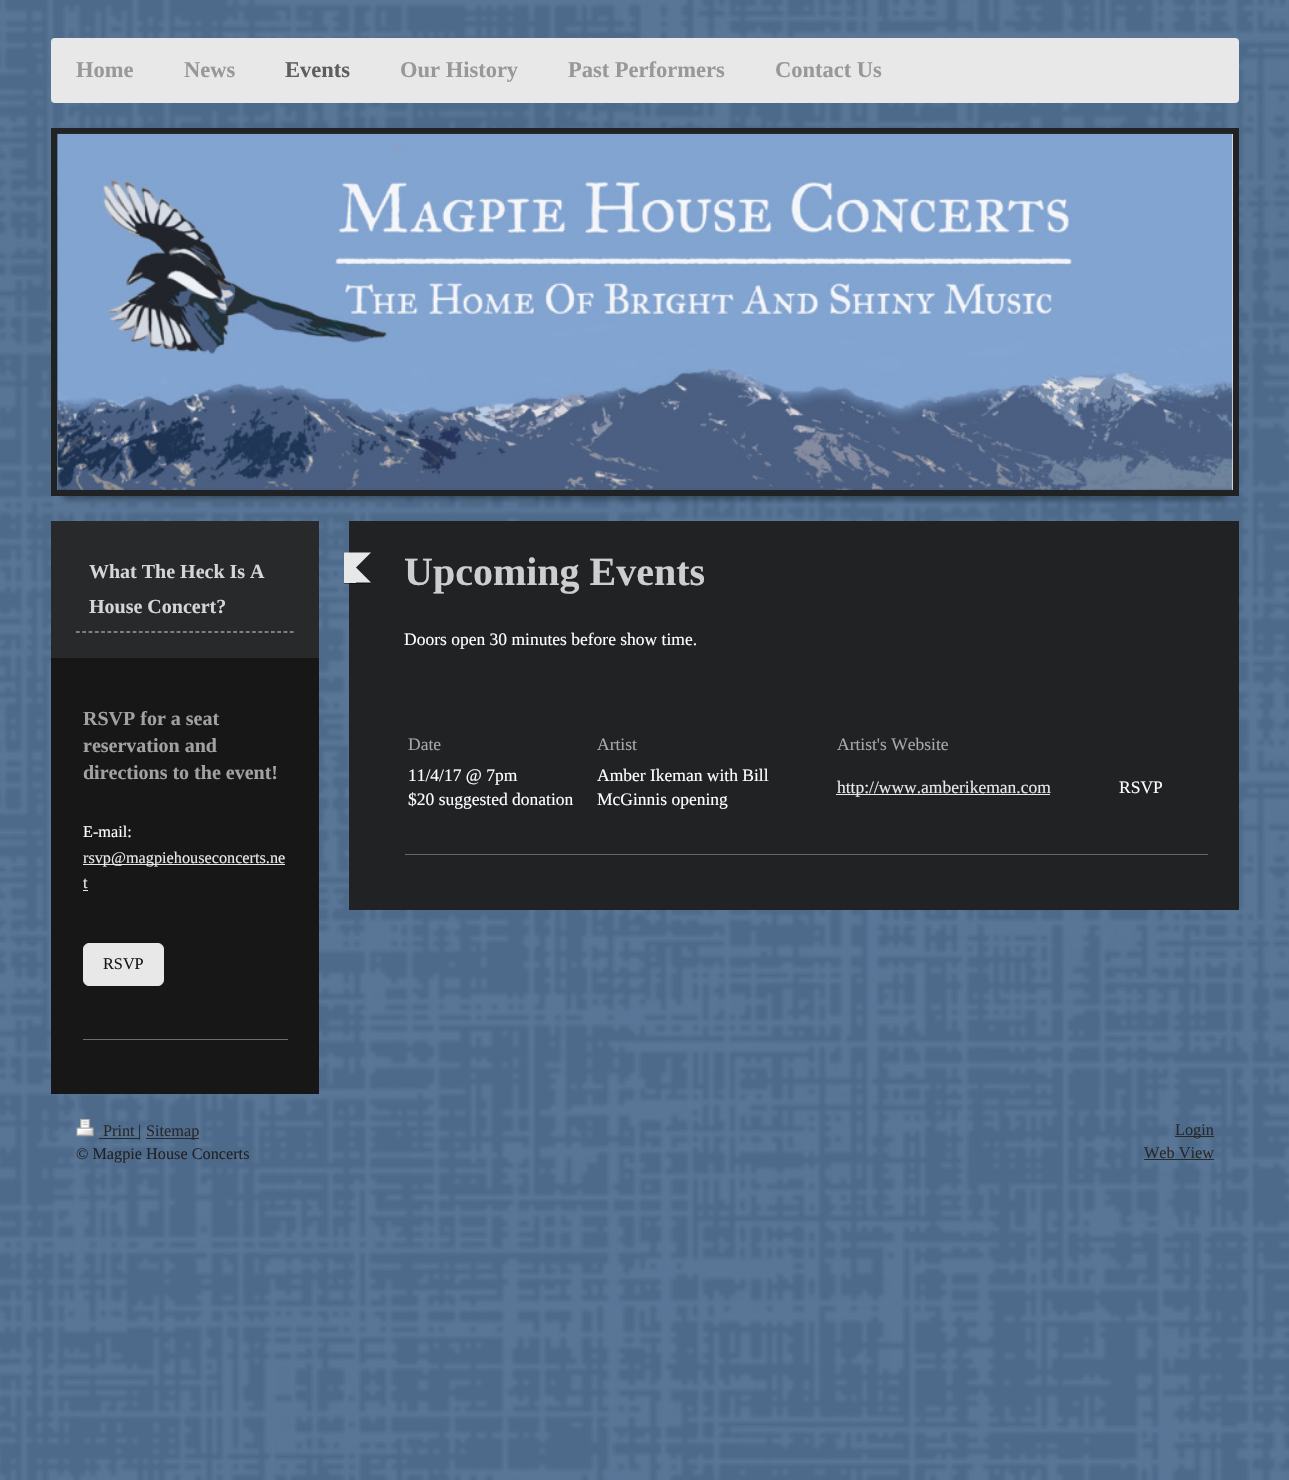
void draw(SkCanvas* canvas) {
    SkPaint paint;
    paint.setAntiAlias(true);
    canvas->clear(0xFF6082AB);
    canvas->drawImageRect(SkImages::DeferredFromEncodedData(SkData::MakeFromFileName("img1.png")), SkRect::MakeXYWH(0, 0, 1289, 1480), SkSamplingOptions());
    paint.setColor(0xFFE8E8E8);
    canvas->drawRoundRect(SkRect::MakeXYWH(51, 38, 1188, 65), 4, 4, paint);
    SkFont font1(fontMgr->matchFamilyStyle("Liberation Serif", SkFontStyle::Bold()), 22.5f);
    font1.setSubpixel(true);
    paint.setColor(0xFF989898);
    canvas->drawString("Home", 76, 77, font1, paint);
    canvas->drawString("News", 184, 77, font1, paint);
    paint.setColor(0xFF5E5E5E);
    canvas->drawString("Events", 285, 77, font1, paint);
    paint.setColor(0xFF989898);
    canvas->drawString("Our History", 400, 77, font1, paint);
    canvas->drawString("Past Performers", 568, 77, font1, paint);
    canvas->drawString("Contact Us", 775, 77, font1, paint);
    paint.setColor(0x4D000000);
    paint.setMaskFilter(SkMaskFilter::MakeBlur(kNormal_SkBlurStyle, 3));
    canvas->drawRect(SkRect::MakeXYWH(64, 131, 1162, 369), paint);
    paint.setMaskFilter(nullptr);
    paint.setStyle(SkPaint::kStroke_Style);
    paint.setStrokeWidth(6);
    paint.setColor(0xFF212224);
    canvas->drawRect(SkRect::MakeXYWH(54, 131, 1182, 362), paint);
    paint.setStyle(SkPaint::kFill_Style);
    paint.setColor(0xFFEEEEEE);
    canvas->drawRect(SkRect::MakeXYWH(1232, 134, 1, 356), paint);
    canvas->drawImageRect(SkImages::DeferredFromEncodedData(SkData::MakeFromFileName("img2.png")), SkRect::MakeXYWH(57, 133, 1176, 357), SkSamplingOptions());
    paint.setColor(0xFF28292B);
    canvas->drawRect(SkRect::MakeXYWH(51, 521, 268, 137), paint);
    paint.setColor(0xFF212224);
    canvas->drawRect(SkRect::MakeXYWH(349, 521, 890, 389), paint);
    paint.setColor(0x66000000);
    canvas->drawRect(SkRect::MakeXYWH(344, 583, 27, 1), paint);
    paint.setColor(0xFFE8E8E8);
    canvas->drawPath(SkPathBuilder().moveTo(344, 552.5f).lineTo(371, 552.5f).lineTo(356, 567.5f).close().detach(), paint);
    canvas->drawPath(SkPathBuilder().moveTo(371, 582.5f).lineTo(344, 582.5f).lineTo(356, 567.5f).close().detach(), paint);
    canvas->drawRect(SkRect::MakeXYWH(344, 553, 12, 30), paint);
    SkFont font2(fontMgr->matchFamilyStyle("Liberation Serif", SkFontStyle::Bold()), 40);
    font2.setSubpixel(true);
    paint.setColor(0xFFCDCED0);
    canvas->drawString("Upcoming Events", 404, 585, font2, paint);
    SkFont font3(fontMgr->matchFamilyStyle("Liberation Serif", SkFontStyle::Normal()), 17.5f);
    font3.setSubpixel(true);
    paint.setColor(0xFFFFFFFF);
    canvas->drawString("Doors open 30 minutes before show time.", 404, 645, font3, paint);
    paint.setColor(0xFFA9A8A8);
    canvas->drawString("Date", 408, 750, font3, paint);
    canvas->drawString("Artist", 597, 750, font3, paint);
    canvas->drawString("Artist's Website", 837, 750, font3, paint);
    paint.setColor(0xFFFFFFFF);
    canvas->drawString("11/4/17 @ 7pm", 408, 781, font3, paint);
    canvas->drawString("$20 suggested donation", 408, 805, font3, paint);
    canvas->drawString("Amber Ikeman with Bill", 597, 781, font3, paint);
    canvas->drawString("McGinnis opening", 597, 805, font3, paint);
    paint.setColor(0xFFE8E8E8);
    canvas->drawRect(SkRect::MakeXYWH(836, 794, 214, 1), paint);
    canvas->drawString("http://www.amberikeman.com", 837, 793, font3, paint);
    paint.setColor(0xFFFFFFFF);
    canvas->drawString("RSVP", 1119, 793, font3, paint);
    paint.setColor(0xFF63666C);
    canvas->drawRect(SkRect::MakeXYWH(405, 854, 803, 1), paint);
    paint.setStyle(SkPaint::kStroke_Style);
    paint.setStrokeWidth(1.2f);
    paint.setColor(0xFFD5D5D6);
    paint.setPathEffect(SkDashPathEffect::Make({{3.75f, 2.54f}}, 0));
    canvas->drawPath(SkPathBuilder().moveTo(76, 632).lineTo(294, 632).detach(), paint);
    paint.setPathEffect(nullptr);
    SkFont font4(fontMgr->matchFamilyStyle("Liberation Serif", SkFontStyle::Bold()), 20);
    font4.setSubpixel(true);
    paint.setStyle(SkPaint::kFill_Style);
    canvas->drawString("What The Heck Is A", 89, 578, font4, paint);
    canvas->drawString("House Concert?", 89, 613, font4, paint);
    paint.setColor(0xFF171717);
    canvas->drawRect(SkRect::MakeXYWH(51, 658, 268, 436), paint);
    paint.setColor(0xFFA1A1A1);
    canvas->drawString("RSVP for a seat", 83, 725, font4, paint);
    canvas->drawString("reservation and", 83, 752, font4, paint);
    canvas->drawString("directions to the event!", 83, 779, font4, paint);
    SkFont font5(fontMgr->matchFamilyStyle("Liberation Serif", SkFontStyle::Normal()), 16.25f);
    font5.setSubpixel(true);
    paint.setColor(0xFFFFFFFF);
    canvas->drawString("E-mail:", 83, 837, font5, paint);
    paint.setColor(0xFFE8E8E8);
    canvas->drawRect(SkRect::MakeXYWH(83, 864, 202, 1), paint);
    canvas->drawString("rsvp@magpiehouseconcerts.ne", 83, 863, font5, paint);
    canvas->drawString("t", 83, 888, font5, paint);
    canvas->drawRect(SkRect::MakeXYWH(83, 890, 5, 1), paint);
    canvas->drawRoundRect(SkRect::MakeXYWH(83.5f, 943.5f, 80, 42), 5.5f, 5.5f, paint);
    paint.setStyle(SkPaint::kStroke_Style);
    paint.setStrokeWidth(1);
    canvas->drawRoundRect(SkRect::MakeXYWH(83.5f, 943.5f, 80, 42), 5.5f, 5.5f, paint);
    paint.setStyle(SkPaint::kFill_Style);
    paint.setColor(0xFF191919);
    canvas->drawString("RSVP", 103, 969, font5, paint);
    paint.setColor(0xFF6A6D72);
    canvas->drawRect(SkRect::MakeXYWH(83, 1039, 205, 1), paint);
    canvas->drawImageRect(SkImages::DeferredFromEncodedData(SkData::MakeFromFileName("img3.png")), SkRect::MakeXYWH(76, 1118, 18, 19), SkSamplingOptions());
    paint.setColor(0xFF28292B);
    canvas->drawString("Print", 103, 1136, font5, paint);
    canvas->drawRect(SkRect::MakeXYWH(99, 1138, 40, 1), paint);
    paint.setColor(0xFF212224);
    canvas->drawString("|", 138, 1136, font5, paint);
    paint.setColor(0xFF28292B);
    canvas->drawRect(SkRect::MakeXYWH(146, 1138, 53, 1), paint);
    canvas->drawString("Sitemap", 146, 1136, font5, paint);
    paint.setColor(0xFF212224);
    canvas->drawString("© Magpie House Concerts", 76, 1159, font5, paint);
    paint.setColor(0xFF28292B);
    canvas->drawRect(SkRect::MakeXYWH(1175, 1136, 39, 1), paint);
    canvas->drawString("Login", 1175, 1135, font5, paint);
    canvas->drawString("Web View", 1144, 1158, font5, paint);
    canvas->drawRect(SkRect::MakeXYWH(1144, 1159, 70, 1), paint);
}
